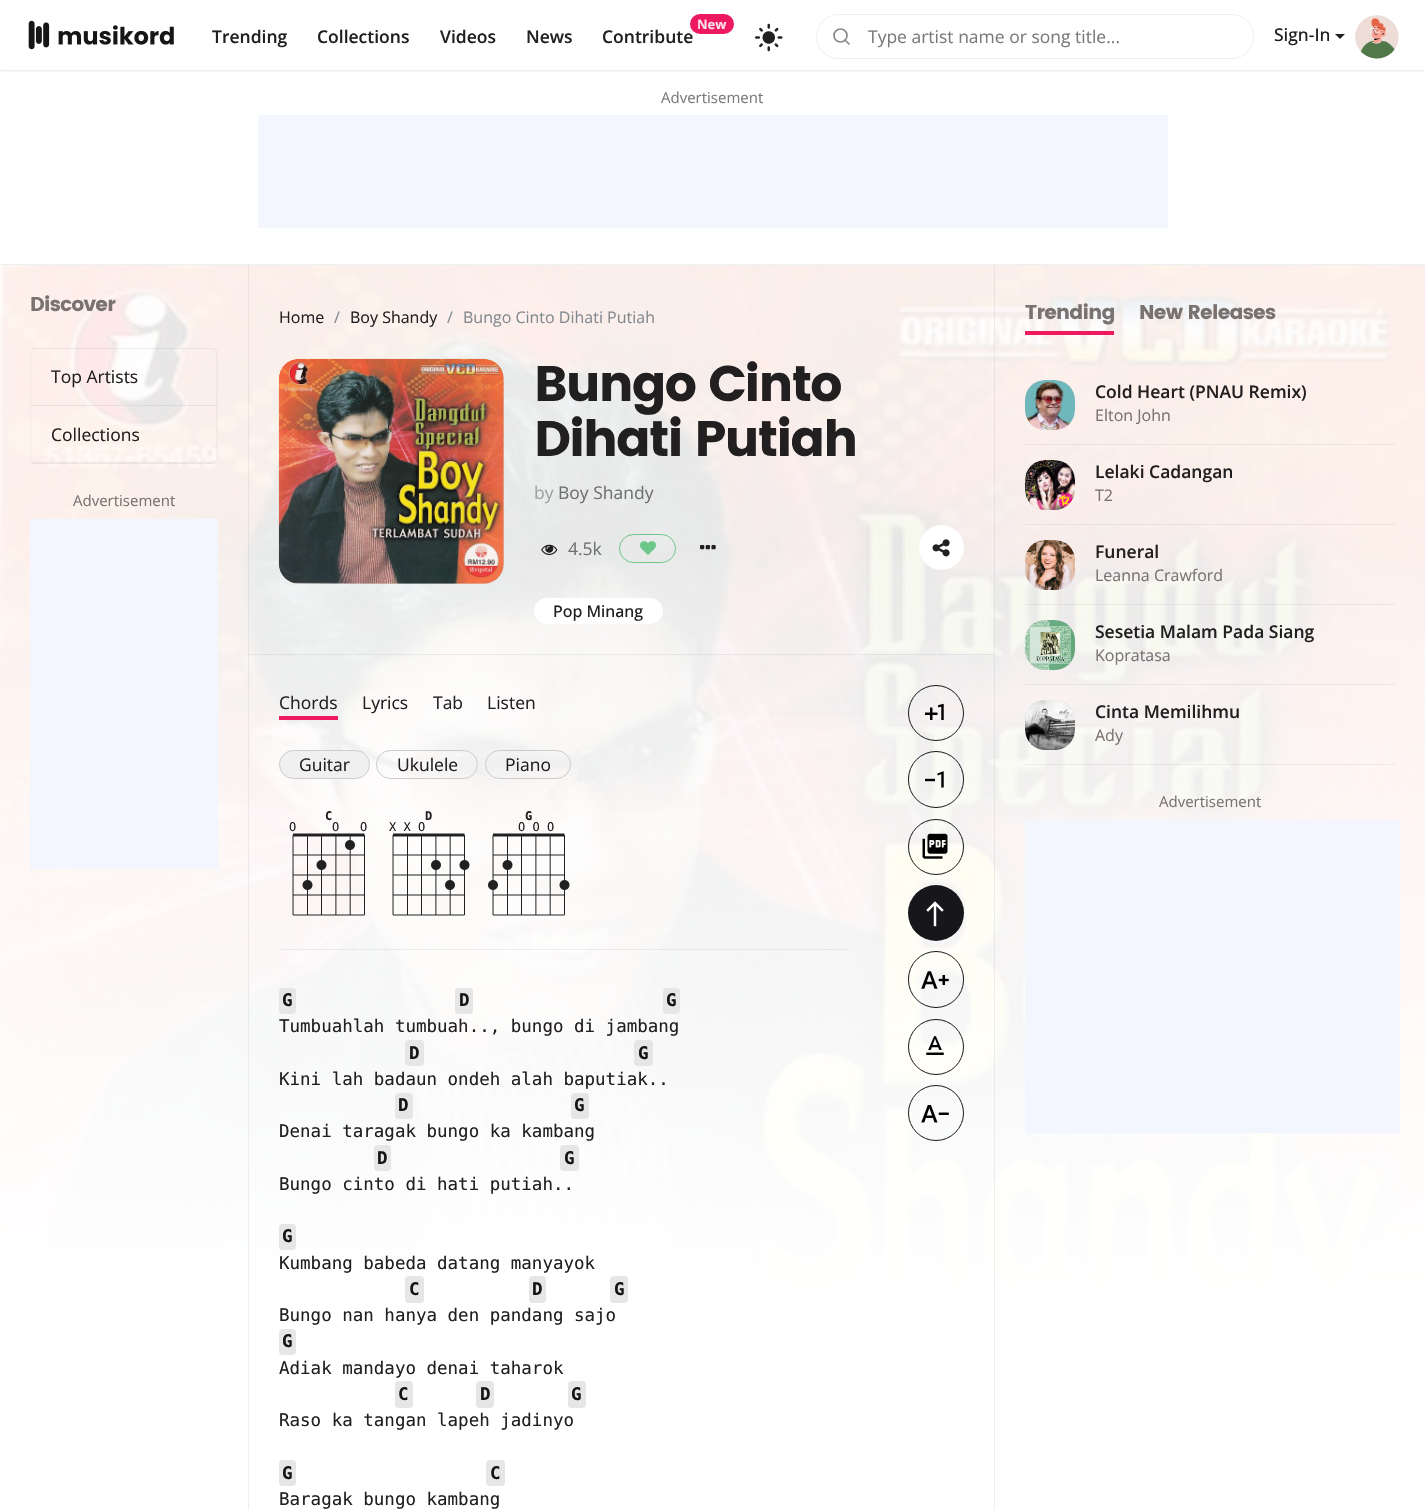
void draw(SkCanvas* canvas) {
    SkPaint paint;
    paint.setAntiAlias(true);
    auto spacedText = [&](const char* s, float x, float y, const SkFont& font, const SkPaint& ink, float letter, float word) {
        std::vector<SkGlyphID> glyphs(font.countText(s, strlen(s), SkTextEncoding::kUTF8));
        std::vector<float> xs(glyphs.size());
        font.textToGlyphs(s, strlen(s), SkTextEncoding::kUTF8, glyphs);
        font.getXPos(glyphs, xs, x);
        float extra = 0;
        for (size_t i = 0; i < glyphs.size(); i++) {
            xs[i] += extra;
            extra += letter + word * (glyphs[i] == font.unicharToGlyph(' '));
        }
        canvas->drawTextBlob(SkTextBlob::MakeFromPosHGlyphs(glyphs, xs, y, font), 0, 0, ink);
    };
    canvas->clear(0xFFFFFFFF);
    canvas->save();
    canvas->clipRect(SkRect::MakeXYWH(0, 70, 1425, 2));
    paint.setColor(0x1A000000);
    paint.setMaskFilter(SkMaskFilter::MakeBlur(kNormal_SkBlurStyle, 1));
    canvas->drawRect(SkRect::MakeXYWH(0, 1, 1425, 70), paint);
    paint.setMaskFilter(nullptr);
    canvas->restore();
    canvas->drawImageRect(SkImages::DeferredFromEncodedData(SkData::MakeFromFileName("img1.png")), SkRect::MakeXYWH(28, 20, 146, 30), SkSamplingOptions());
    SkFont font1(fontMgr->matchFamilyStyle("Open Sans", SkFontStyle(600, SkFontStyle::kNormal_Width, SkFontStyle::kUpright_Slant)), 17.5f);
    font1.setSubpixel(true);
    paint.setColor(0xFF211F1F);
    canvas->drawString("Trending", 212, 43, font1, paint);
    canvas->drawString("Collections", 317, 43, font1, paint);
    canvas->drawString("Videos", 440, 43, font1, paint);
    canvas->drawString("News", 526, 43, font1, paint);
    canvas->drawString("Contribute", 602, 43, font1, paint);
    paint.setColor(0xFFEF1960);
    canvas->drawRoundRect(SkRect::MakeXYWH(690, 14, 44, 20), 10, 10, paint);
    SkFont font2(fontMgr->matchFamilyStyle("Open Sans", SkFontStyle::Bold()), 13);
    font2.setSubpixel(true);
    paint.setColor(0xFFFDE1EA);
    canvas->drawString("New", 697, 29, font2, paint);
    canvas->drawImageRect(SkImages::DeferredFromEncodedData(SkData::MakeFromFileName("img2.png")), SkRect::MakeXYWH(755, 23, 28, 29), SkSamplingOptions());
    paint.setStyle(SkPaint::kStroke_Style);
    paint.setStrokeWidth(1);
    paint.setColor(0xFFEDEFF0);
    canvas->drawRoundRect(SkRect::MakeXYWH(816.5f, 14.5f, 437, 44), 22, 22, paint);
    paint.setStrokeWidth(1.7f);
    paint.setColor(0xFF888888);
    canvas->drawCircle(840.5f, 35.5f, 6.5f, paint);
    paint.setStrokeCap(SkPaint::kRound_Cap);
    paint.setStrokeJoin(SkPaint::kRound_Join);
    canvas->drawPath(SkPathBuilder().moveTo(849, 44).lineTo(845, 40).detach(), paint);
    SkFont font3(fontMgr->matchFamilyStyle("Open Sans", SkFontStyle::Normal()), 17.5f);
    font3.setSubpixel(true);
    paint.setStyle(SkPaint::kFill_Style);
    paint.setColor(0xFF7A7A7A);
    canvas->drawString("Type artist name or song title...", 868, 43, font3, paint);
    SkFont font4(fontMgr->matchFamilyStyle("Open Sans", SkFontStyle(500, SkFontStyle::kNormal_Width, SkFontStyle::kUpright_Slant)), 17.5f);
    font4.setSubpixel(true);
    paint.setColor(0xFF211F1F);
    canvas->drawString("Sign-In", 1274, 41, font4, paint);
    paint.setColor(0xFF212121);
    canvas->drawPath(SkPathBuilder().moveTo(1335, 34).lineTo(1345, 34).lineTo(1340, 39).close().detach(), paint);
    canvas->drawImageRect(SkImages::DeferredFromEncodedData(SkData::MakeFromFileName("img3.png")), SkRect::MakeXYWH(1355, 15, 44, 44), SkSamplingOptions());
    paint.setColor(0xFFEDEFF0);
    canvas->drawRect(SkRect::MakeXYWH(0, 264, 1425, 1), paint);
    SkFont font5(fontMgr->matchFamilyStyle("Open Sans", SkFontStyle::Normal()), 15);
    font5.setSubpixel(true);
    paint.setColor(0xFF7A7A7A);
    canvas->drawString("Advertisement", 661, 103, font5, paint);
    paint.setColor(0xFFF4F6FF);
    canvas->drawRect(SkRect::MakeXYWH(258, 115, 910, 113), paint);
    canvas->drawImageRect(SkImages::DeferredFromEncodedData(SkData::MakeFromFileName("img4.png")), SkRect::MakeXYWH(0, 265, 1425, 1053), SkSamplingOptions());
    {
        const SkColor colors[] = {0x00FFFFFF, 0xFFFFFFFF};
        const float stops[] = {0, 1};
        const SkPoint ends[] = {{713, 476}, {713, 1323}};
        paint.setShader(SkGradientShader::MakeLinear(ends, colors, stops, 2, SkTileMode::kClamp));
        paint.setAlpha(255);
    }
    canvas->drawRect(SkRect::MakeXYWH(0, 561, 1425, 757), paint);
    paint.setShader(nullptr);
    paint.setColor(0x2178828C);
    canvas->drawRect(SkRect::MakeXYWH(248, 265, 1, 1245), paint);
    SkFont font6(fontMgr->matchFamilyStyle("Poppins", SkFontStyle::Bold()), 20);
    font6.setSubpixel(true);
    paint.setColor(0xFF797270);
    spacedText("Discover", 30, 311, font6, paint, -0.75f, 0);
    paint.setColor(0x2178828C);
    canvas->drawPath(SkPathBuilder().moveTo(35, 348).lineTo(32, 349).lineTo(32, 350).lineTo(35, 349).lineTo(212, 349).lineTo(215, 350).lineTo(216, 349).lineTo(212, 348).close().detach(), paint);
    paint.setColor(0x1278828C);
    canvas->drawPath(SkPathBuilder().moveTo(218, 406).lineTo(216, 405).cubicTo(216, 399, 217, 351, 215, 350).lineTo(216, 349).lineTo(218, 351).close().detach(), paint);
    canvas->drawPath(SkPathBuilder().moveTo(217, 406).lineTo(30, 406).lineTo(31, 405).lineTo(216, 405).close().detach(), paint);
    canvas->drawPath(SkPathBuilder().moveTo(30, 352).lineTo(30, 406).lineTo(31, 405).lineTo(31, 351).lineTo(32, 350).lineTo(32, 349).cubicTo(31, 350, 30, 351, 30, 352).close().detach(), paint);
    paint.setColor(0xFF211F1F);
    canvas->drawString("Top Artists", 51, 383, font3, paint);
    paint.setColor(0x1278828C);
    canvas->drawPath(SkPathBuilder().moveTo(30, 405).lineTo(31, 406).lineTo(216, 406).lineTo(218, 405).close().detach(), paint);
    canvas->drawPath(SkPathBuilder().moveTo(218, 405).lineTo(218, 461).lineTo(216, 463).lineTo(215, 461).lineTo(216, 460).lineTo(216, 406).close().detach(), paint);
    paint.setColor(0x2178828C);
    canvas->drawPath(SkPathBuilder().moveTo(33, 464).lineTo(31, 462).lineTo(32, 461).lineTo(35, 462).lineTo(212, 462).lineTo(215, 461).lineTo(216, 463).lineTo(214, 464).close().detach(), paint);
    paint.setColor(0x1278828C);
    canvas->drawPath(SkPathBuilder().moveTo(31, 406).lineTo(30, 405).lineTo(30, 459).cubicTo(30, 460, 30, 462, 31, 462).lineTo(32, 461).cubicTo(32, 461, 31, 460, 31, 459).close().detach(), paint);
    paint.setColor(0xFF211F1F);
    canvas->drawString("Collections", 51, 441, font3, paint);
    paint.setColor(0xFF797270);
    canvas->drawString("Advertisement", 73, 506, font5, paint);
    paint.setColor(0xFFF4F6FF);
    canvas->drawRect(SkRect::MakeXYWH(30, 519, 188, 350), paint);
    paint.setColor(0x2178828C);
    canvas->drawRect(SkRect::MakeXYWH(994, 265, 1, 1245), paint);
    canvas->drawRect(SkRect::MakeXYWH(249, 654, 745, 1), paint);
    SkFont font7(fontMgr->matchFamilyStyle("Open Sans", SkFontStyle::Normal()), 16);
    font7.setSubpixel(true);
    paint.setColor(0xFF211F1F);
    canvas->drawString("Home", 279, 323, font7, paint);
    paint.setColor(0xFF818A91);
    canvas->drawString("/", 334, 323, font7, paint);
    paint.setColor(0xFF211F1F);
    canvas->drawString("Boy Shandy", 350, 323, font7, paint);
    paint.setColor(0xFF818A91);
    canvas->drawString("/", 447, 323, font7, paint);
    canvas->drawString("Bungo Cinto Dihati Putiah", 463, 323, font7, paint);
    paint.setColor(0x33787878);
    canvas->drawRoundRect(SkRect::MakeXYWH(279, 359, 225, 225), 20, 20, paint);
    canvas->drawImageRect(SkImages::DeferredFromEncodedData(SkData::MakeFromFileName("img5.png")), SkRect::MakeXYWH(278, 358, 226, 226), SkSamplingOptions());
    SkFont font8(fontMgr->matchFamilyStyle("Poppins", SkFontStyle::Bold()), 50);
    font8.setSubpixel(true);
    paint.setColor(0xFF211F1F);
    spacedText("Bungo Cinto", 534, 401, font8, paint, -2, 0);
    spacedText("Dihati Putiah", 534, 456, font8, paint, -2, 0);
    paint.setColor(0xFFA1A2A2);
    canvas->drawString("by", 534, 499, font3, paint);
    paint.setColor(0xFF6F7070);
    canvas->drawString("Boy Shandy", 558, 499, font3, paint);
    canvas->drawImageRect(SkImages::DeferredFromEncodedData(SkData::MakeFromFileName("img6.png")), SkRect::MakeXYWH(541, 544, 17, 11), SkSamplingOptions());
    canvas->drawString("4.5k", 568, 555, font3, paint);
    paint.setStyle(SkPaint::kStroke_Style);
    paint.setStrokeWidth(1);
    paint.setStrokeCap(SkPaint::kButt_Cap);
    paint.setStrokeJoin(SkPaint::kMiter_Join);
    paint.setColor(0xFF6CC788);
    canvas->drawRoundRect(SkRect::MakeXYWH(619.5f, 534.5f, 56, 28), 14, 14, paint);
    canvas->drawImageRect(SkImages::DeferredFromEncodedData(SkData::MakeFromFileName("img7.png")), SkRect::MakeXYWH(640, 541, 16, 14), SkSamplingOptions());
    canvas->drawImageRect(SkImages::DeferredFromEncodedData(SkData::MakeFromFileName("img8.png")), SkRect::MakeXYWH(700, 545, 16, 5), SkSamplingOptions());
    paint.setStyle(SkPaint::kFill_Style);
    paint.setColor(0xFFFFFFFF);
    canvas->drawCircle(941.5f, 547.5f, 22.5f, paint);
    canvas->drawImageRect(SkImages::DeferredFromEncodedData(SkData::MakeFromFileName("img9.png")), SkRect::MakeXYWH(932, 539, 18, 18), SkSamplingOptions());
    canvas->drawRoundRect(SkRect::MakeXYWH(534, 598, 129, 26), 13, 13, paint);
    SkFont font9(fontMgr->matchFamilyStyle("Open Sans", SkFontStyle(500, SkFontStyle::kNormal_Width, SkFontStyle::kUpright_Slant)), 16);
    font9.setSubpixel(true);
    paint.setColor(0xFF211F1F);
    canvas->drawString("Pop Minang", 553, 617, font9, paint);
    canvas->drawString("Chords", 279, 709, font3, paint);
    paint.setColor(0xFFEF1960);
    canvas->drawRect(SkRect::MakeXYWH(279, 716, 59, 4), paint);
    paint.setColor(0xFF211F1F);
    canvas->drawString("Lyrics", 362, 709, font3, paint);
    canvas->drawString("Tab", 433, 709, font3, paint);
    canvas->drawString("Listen", 487, 709, font3, paint);
    paint.setColor(0xFFF0F0F0);
    canvas->drawRoundRect(SkRect::MakeXYWH(279.5f, 750.5f, 90, 28), 14, 14, paint);
    paint.setStyle(SkPaint::kStroke_Style);
    paint.setColor(0xFFCCCCCC);
    canvas->drawRoundRect(SkRect::MakeXYWH(279.5f, 750.5f, 90, 28), 14, 14, paint);
    paint.setStyle(SkPaint::kFill_Style);
    paint.setColor(0xFF211F1F);
    canvas->drawString("Guitar", 299, 771, font3, paint);
    paint.setStyle(SkPaint::kStroke_Style);
    paint.setColor(0xFFCCCCCC);
    canvas->drawRoundRect(SkRect::MakeXYWH(376.5f, 750.5f, 101, 28), 14, 14, paint);
    paint.setStyle(SkPaint::kFill_Style);
    paint.setColor(0xFF211F1F);
    canvas->drawString("Ukulele", 397, 771, font3, paint);
    paint.setStyle(SkPaint::kStroke_Style);
    paint.setColor(0xFFCCCCCC);
    canvas->drawRoundRect(SkRect::MakeXYWH(485.5f, 750.5f, 85, 28), 14, 14, paint);
    paint.setStyle(SkPaint::kFill_Style);
    paint.setColor(0xFF211F1F);
    canvas->drawString("Piano", 505, 771, font3, paint);
    paint.setColor(0x2178828C);
    canvas->drawRect(SkRect::MakeXYWH(279, 949, 569, 1), paint);
    SkFont font10(fontMgr->matchFamilyStyle("DejaVu Sans Mono", SkFontStyle::Bold()), 12);
    font10.setSubpixel(true);
    paint.setColor(0xFF211F1F);
    canvas->drawString("C", 325, 820, font10, paint);
    SkFont font11(fontMgr->matchFamilyStyle("DejaVu Sans Mono", SkFontStyle::Normal()), 12);
    font11.setSubpixel(true);
    canvas->drawString("O", 289, 831, font11, paint);
    canvas->drawString("O", 332, 831, font11, paint);
    canvas->drawString("O", 360, 831, font11, paint);
    canvas->drawImageRect(SkImages::DeferredFromEncodedData(SkData::MakeFromFileName("img10.png")), SkRect::MakeXYWH(292, 833, 73, 83), SkSamplingOptions());
    canvas->drawString("D", 425, 820, font10, paint);
    canvas->drawString("X X O", 389, 831, font11, paint);
    canvas->drawImageRect(SkImages::DeferredFromEncodedData(SkData::MakeFromFileName("img11.png")), SkRect::MakeXYWH(392, 833, 78, 83), SkSamplingOptions());
    canvas->drawString("G", 525, 820, font10, paint);
    canvas->drawString("O O O", 518, 831, font11, paint);
    canvas->drawImageRect(SkImages::DeferredFromEncodedData(SkData::MakeFromFileName("img12.png")), SkRect::MakeXYWH(488, 833, 82, 83), SkSamplingOptions());
    paint.setColor(0xFFE6E6E6);
    canvas->drawRoundRect(SkRect::MakeXYWH(279, 988, 17, 26), 4, 4, paint);
    SkFont font12(fontMgr->matchFamilyStyle("DejaVu Sans Mono", SkFontStyle::Bold()), 17.5f);
    font12.setSubpixel(true);
    paint.setColor(0xFF141417);
    canvas->drawString("G", 282, 1006, font12, paint);
    paint.setColor(0xFFE6E6E6);
    canvas->drawRoundRect(SkRect::MakeXYWH(455, 988, 18, 26), 4, 4, paint);
    paint.setColor(0xFF141417);
    canvas->drawString("D", 459, 1006, font12, paint);
    paint.setColor(0xFFE6E6E6);
    canvas->drawRoundRect(SkRect::MakeXYWH(663, 988, 17, 26), 4, 4, paint);
    paint.setColor(0xFF141417);
    canvas->drawString("G", 666, 1006, font12, paint);
    SkFont font13(fontMgr->matchFamilyStyle("DejaVu Sans Mono", SkFontStyle::Normal()), 17.5f);
    font13.setSubpixel(true);
    paint.setColor(0xFF211F1F);
    canvas->drawString("Tumbuahlah tumbuah.., bungo di jambang", 279, 1032, font13, paint);
    paint.setColor(0xFFE6E6E6);
    canvas->drawRoundRect(SkRect::MakeXYWH(405, 1040, 19, 26), 4, 4, paint);
    paint.setColor(0xFF141417);
    canvas->drawString("D", 409, 1059, font12, paint);
    paint.setColor(0xFFE6E6E6);
    canvas->drawRoundRect(SkRect::MakeXYWH(634, 1040, 19, 26), 4, 4, paint);
    paint.setColor(0xFF141417);
    canvas->drawString("G", 638, 1059, font12, paint);
    paint.setColor(0xFF211F1F);
    canvas->drawString("Kini lah badaun ondeh alah baputiak..", 279, 1085, font13, paint);
    paint.setColor(0xFFE6E6E6);
    canvas->drawRoundRect(SkRect::MakeXYWH(395, 1093, 18, 26), 4, 4, paint);
    paint.setColor(0xFF141417);
    canvas->drawString("D", 398, 1111, font12, paint);
    paint.setColor(0xFFE6E6E6);
    canvas->drawRoundRect(SkRect::MakeXYWH(571, 1093, 18, 26), 4, 4, paint);
    paint.setColor(0xFF141417);
    canvas->drawString("G", 574, 1111, font12, paint);
    paint.setColor(0xFF211F1F);
    canvas->drawString("Denai taragak bungo ka kambang", 279, 1137, font13, paint);
    paint.setColor(0xFFE6E6E6);
    canvas->drawRoundRect(SkRect::MakeXYWH(374, 1145, 17, 26), 4, 4, paint);
    paint.setColor(0xFF141417);
    canvas->drawString("D", 377, 1164, font12, paint);
    paint.setColor(0xFFE6E6E6);
    canvas->drawRoundRect(SkRect::MakeXYWH(560, 1145, 19, 26), 4, 4, paint);
    paint.setColor(0xFF141417);
    canvas->drawString("G", 564, 1164, font12, paint);
    paint.setColor(0xFF211F1F);
    canvas->drawString("Bungo cinto di hati putiah..", 279, 1190, font13, paint);
    paint.setColor(0xFFE6E6E6);
    canvas->drawRoundRect(SkRect::MakeXYWH(279, 1224, 17, 26), 4, 4, paint);
    paint.setColor(0xFF141417);
    canvas->drawString("G", 282, 1242, font12, paint);
    paint.setColor(0xFF211F1F);
    canvas->drawString("Kumbang babeda datang manyayok", 279, 1269, font13, paint);
    paint.setColor(0xFFE6E6E6);
    canvas->drawRoundRect(SkRect::MakeXYWH(405, 1276, 19, 27), 4, 4, paint);
    paint.setColor(0xFF141417);
    canvas->drawString("C", 409, 1295, font12, paint);
    paint.setColor(0xFFE6E6E6);
    canvas->drawRoundRect(SkRect::MakeXYWH(529, 1276, 17, 27), 4, 4, paint);
    paint.setColor(0xFF141417);
    canvas->drawString("D", 532, 1295, font12, paint);
    paint.setColor(0xFFE6E6E6);
    canvas->drawRoundRect(SkRect::MakeXYWH(610, 1276, 18, 27), 4, 4, paint);
    paint.setColor(0xFF141417);
    canvas->drawString("G", 614, 1295, font12, paint);
    paint.setColor(0xFF211F1F);
    canvas->drawString("Bungo nan hanya den pandang sajo", 279, 1321, font13, paint);
    paint.setColor(0xFFE6E6E6);
    canvas->drawRoundRect(SkRect::MakeXYWH(279, 1329, 17, 26), 4, 4, paint);
    paint.setColor(0xFF141417);
    canvas->drawString("G", 282, 1347, font12, paint);
    paint.setColor(0xFF211F1F);
    canvas->drawString("Adiak mandayo denai taharok", 279, 1374, font13, paint);
    paint.setColor(0xFFE6E6E6);
    canvas->drawRoundRect(SkRect::MakeXYWH(395, 1381, 18, 27), 4, 4, paint);
    paint.setColor(0xFF141417);
    canvas->drawString("C", 398, 1400, font12, paint);
    paint.setColor(0xFFE6E6E6);
    canvas->drawRoundRect(SkRect::MakeXYWH(476, 1381, 18, 27), 4, 4, paint);
    paint.setColor(0xFF141417);
    canvas->drawString("D", 480, 1400, font12, paint);
    paint.setColor(0xFFE6E6E6);
    canvas->drawRoundRect(SkRect::MakeXYWH(568, 1381, 18, 27), 4, 4, paint);
    paint.setColor(0xFF141417);
    canvas->drawString("G", 571, 1400, font12, paint);
    paint.setColor(0xFF211F1F);
    canvas->drawString("Raso ka tangan lapeh jadinyo", 279, 1426, font13, paint);
    paint.setColor(0xFFE6E6E6);
    canvas->drawRoundRect(SkRect::MakeXYWH(279, 1460, 17, 26), 4, 4, paint);
    paint.setColor(0xFF141417);
    canvas->drawString("G", 282, 1479, font12, paint);
    paint.setColor(0xFFE6E6E6);
    canvas->drawRoundRect(SkRect::MakeXYWH(486, 1460, 19, 26), 4, 4, paint);
    paint.setColor(0xFF141417);
    canvas->drawString("C", 490, 1479, font12, paint);
    paint.setColor(0xFF211F1F);
    canvas->drawString("Baragak bungo kambang", 279, 1505, font13, paint);
    paint.setStyle(SkPaint::kStroke_Style);
    paint.setColor(0xFF17171B);
    canvas->drawCircle(936, 713, 27.5f, paint);
    canvas->drawImageRect(SkImages::DeferredFromEncodedData(SkData::MakeFromFileName("img13.png")), SkRect::MakeXYWH(925, 703, 19, 17), SkSamplingOptions());
    canvas->drawRoundRect(SkRect::MakeXYWH(908.5f, 751.5f, 55, 56), 27.5f, 27.5f, paint);
    canvas->drawImageRect(SkImages::DeferredFromEncodedData(SkData::MakeFromFileName("img14.png")), SkRect::MakeXYWH(925, 771, 19, 17), SkSamplingOptions());
    canvas->drawCircle(936, 847, 27.5f, paint);
    canvas->drawImageRect(SkImages::DeferredFromEncodedData(SkData::MakeFromFileName("img15.png")), SkRect::MakeXYWH(922, 833, 26, 26), SkSamplingOptions());
    paint.setStyle(SkPaint::kFill_Style);
    canvas->drawCircle(936, 913, 28, paint);
    canvas->drawImageRect(SkImages::DeferredFromEncodedData(SkData::MakeFromFileName("img16.png")), SkRect::MakeXYWH(926, 901, 18, 26), SkSamplingOptions());
    paint.setStyle(SkPaint::kStroke_Style);
    canvas->drawRoundRect(SkRect::MakeXYWH(908.5f, 951.5f, 55, 56), 27.5f, 27.5f, paint);
    canvas->drawImageRect(SkImages::DeferredFromEncodedData(SkData::MakeFromFileName("img17.png")), SkRect::MakeXYWH(921, 971, 28, 18), SkSamplingOptions());
    canvas->drawCircle(936, 1047, 27.5f, paint);
    canvas->drawImageRect(SkImages::DeferredFromEncodedData(SkData::MakeFromFileName("img18.png")), SkRect::MakeXYWH(926, 1036, 18, 19), SkSamplingOptions());
    canvas->drawCircle(936, 1113, 27.5f, paint);
    canvas->drawImageRect(SkImages::DeferredFromEncodedData(SkData::MakeFromFileName("img19.png")), SkRect::MakeXYWH(921, 1105, 28, 18), SkSamplingOptions());
    paint.setStyle(SkPaint::kFill_Style);
    paint.setColor(0xFF797270);
    spacedText("Trending", 1025, 319, font6, paint, -0.75f, 0);
    paint.setColor(0xFFEF1960);
    canvas->drawRect(SkRect::MakeXYWH(1025, 331, 89, 4), paint);
    paint.setColor(0xFF797270);
    spacedText("New Releases", 1139, 319, font6, paint, -0.75f, 0);
    paint.setColor(0x33787878);
    canvas->drawRoundRect(SkRect::MakeXYWH(1025, 380, 50, 50), 20, 20, paint);
    canvas->drawImageRect(SkImages::DeferredFromEncodedData(SkData::MakeFromFileName("img20.png")), SkRect::MakeXYWH(1025, 380, 50, 50), SkSamplingOptions());
    paint.setColor(0xFF211F1F);
    canvas->drawString("Cold Heart (PNAU Remix)", 1095, 398, font1, paint);
    paint.setColor(0xFF797270);
    canvas->drawString("Elton John", 1095, 421, font7, paint);
    paint.setColor(0x1A787878);
    canvas->drawRect(SkRect::MakeXYWH(1025, 444, 370, 1), paint);
    paint.setColor(0x33787878);
    canvas->drawRoundRect(SkRect::MakeXYWH(1025, 460, 50, 50), 20, 20, paint);
    canvas->drawImageRect(SkImages::DeferredFromEncodedData(SkData::MakeFromFileName("img21.png")), SkRect::MakeXYWH(1025, 460, 50, 50), SkSamplingOptions());
    paint.setColor(0xFF211F1F);
    canvas->drawString("Lelaki Cadangan", 1095, 478, font1, paint);
    paint.setColor(0xFF797270);
    canvas->drawString("T2", 1095, 501, font7, paint);
    paint.setColor(0x1A787878);
    canvas->drawRect(SkRect::MakeXYWH(1025, 524, 370, 1), paint);
    paint.setColor(0x33787878);
    canvas->drawRoundRect(SkRect::MakeXYWH(1025, 540, 50, 50), 20, 20, paint);
    canvas->drawImageRect(SkImages::DeferredFromEncodedData(SkData::MakeFromFileName("img22.png")), SkRect::MakeXYWH(1025, 540, 50, 50), SkSamplingOptions());
    paint.setColor(0xFF211F1F);
    canvas->drawString("Funeral", 1095, 558, font1, paint);
    paint.setColor(0xFF797270);
    canvas->drawString("Leanna Crawford", 1095, 581, font7, paint);
    paint.setColor(0x1A787878);
    canvas->drawRect(SkRect::MakeXYWH(1025, 604, 370, 1), paint);
    paint.setColor(0x33787878);
    canvas->drawRoundRect(SkRect::MakeXYWH(1025, 620, 50, 50), 20, 20, paint);
    canvas->drawImageRect(SkImages::DeferredFromEncodedData(SkData::MakeFromFileName("img23.png")), SkRect::MakeXYWH(1025, 620, 50, 50), SkSamplingOptions());
    paint.setColor(0xFF211F1F);
    canvas->drawString("Sesetia Malam Pada Siang", 1095, 638, font1, paint);
    paint.setColor(0xFF797270);
    canvas->drawString("Kopratasa", 1095, 661, font7, paint);
    paint.setColor(0x1A787878);
    canvas->drawRect(SkRect::MakeXYWH(1025, 684, 370, 1), paint);
    paint.setColor(0x33787878);
    canvas->drawRoundRect(SkRect::MakeXYWH(1025, 700, 50, 50), 20, 20, paint);
    canvas->drawImageRect(SkImages::DeferredFromEncodedData(SkData::MakeFromFileName("img24.png")), SkRect::MakeXYWH(1025, 700, 50, 50), SkSamplingOptions());
    paint.setColor(0xFF211F1F);
    canvas->drawString("Cinta Memilihmu", 1095, 718, font1, paint);
    paint.setColor(0xFF797270);
    canvas->drawString("Ady", 1095, 741, font7, paint);
    paint.setColor(0x1A787878);
    canvas->drawRect(SkRect::MakeXYWH(1025, 764, 370, 1), paint);
    paint.setColor(0xFF797270);
    canvas->drawString("Advertisement", 1159, 807, font5, paint);
    paint.setColor(0xFFF4F6FF);
    canvas->drawRect(SkRect::MakeXYWH(1025, 820, 375, 313), paint);
}
